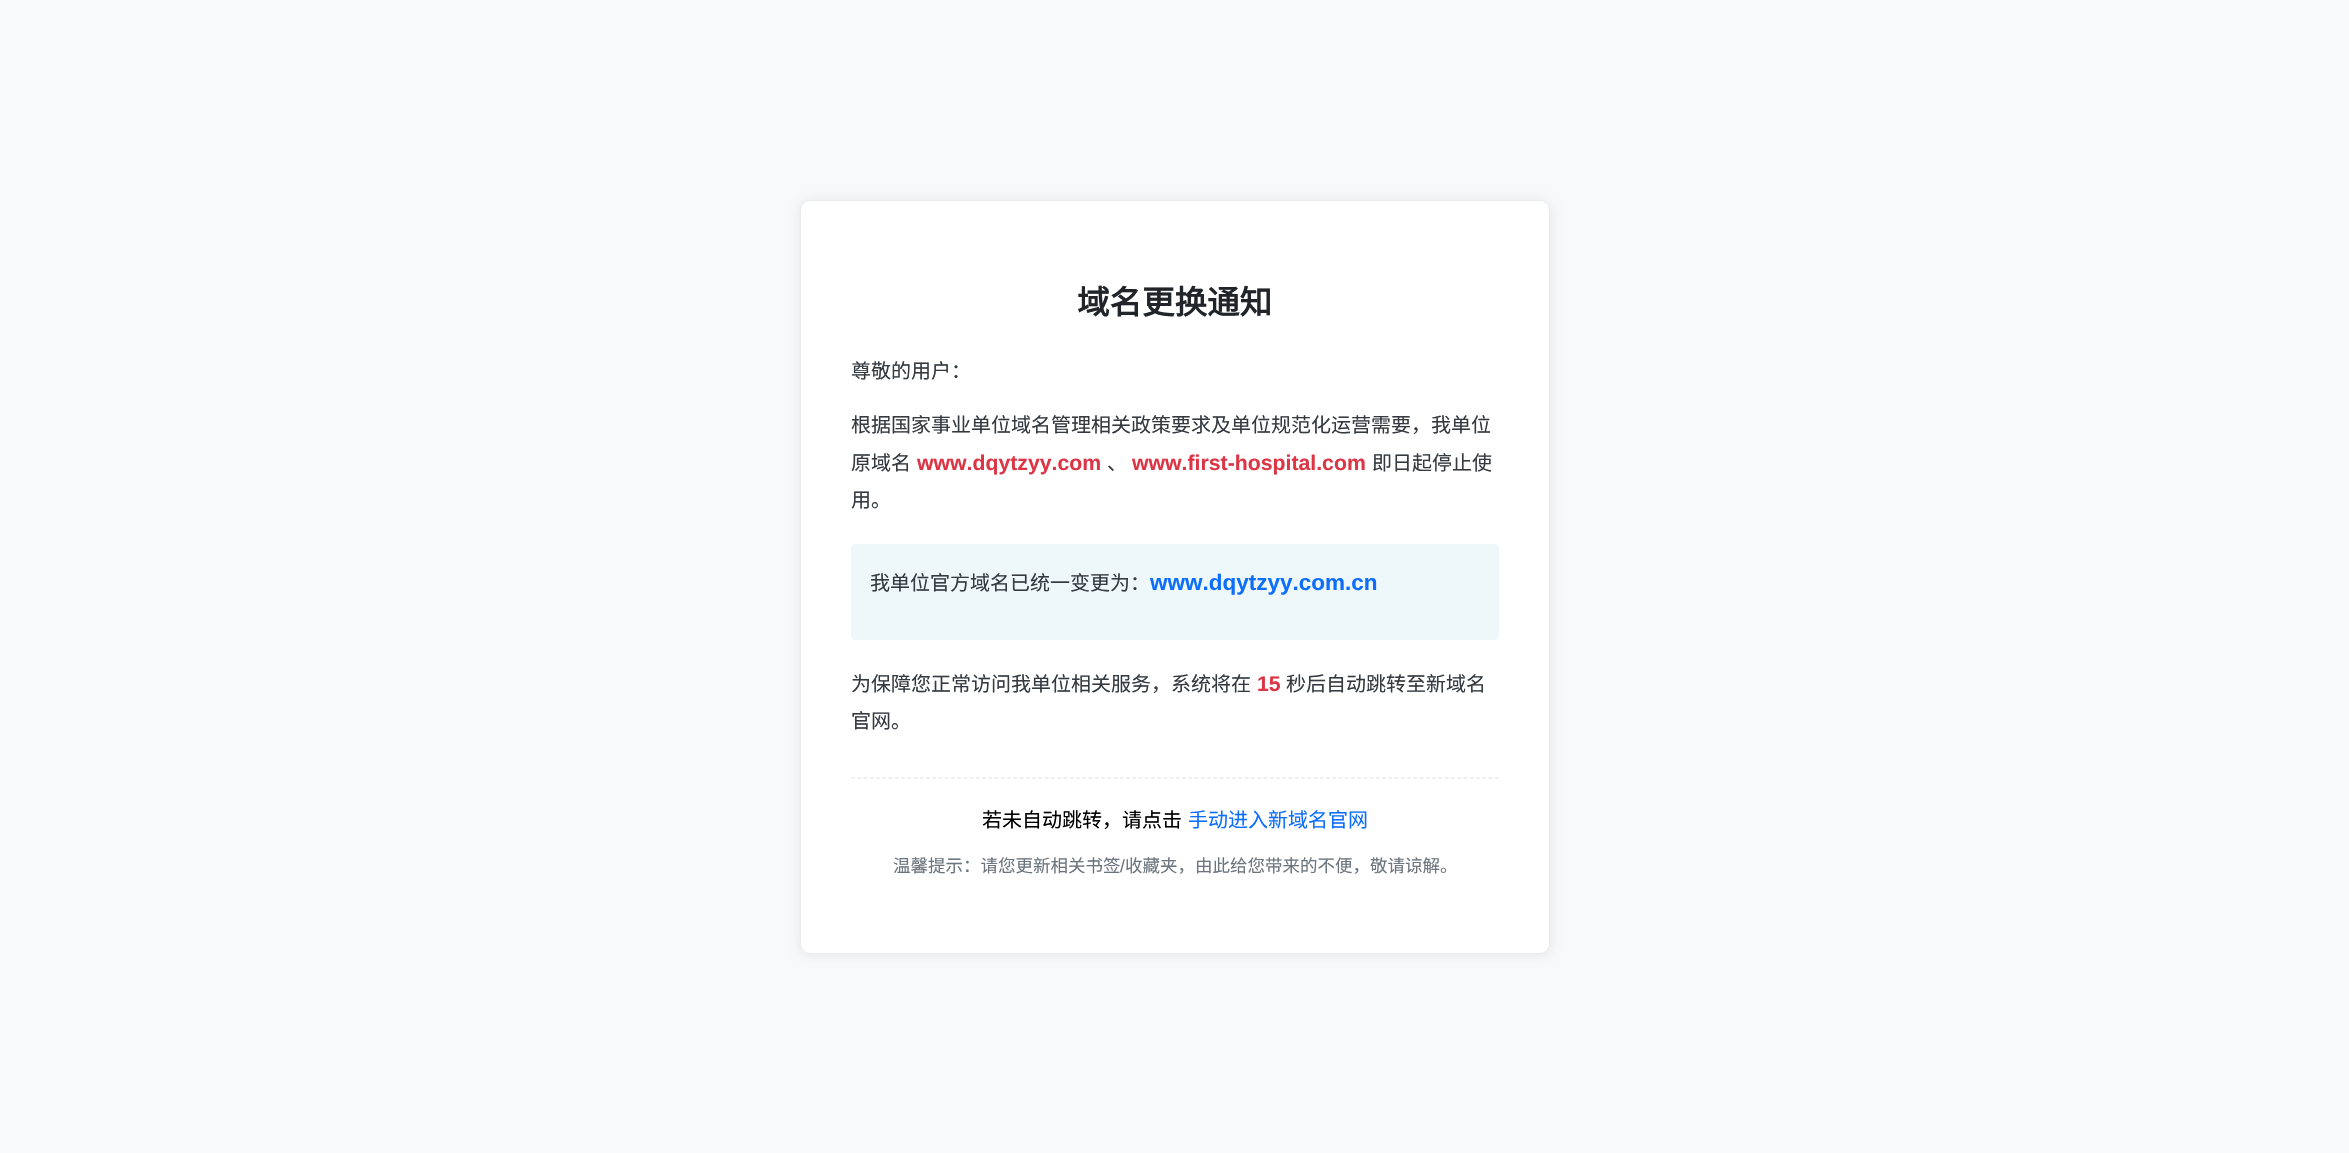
void draw(SkCanvas* canvas) {
    SkPaint paint;
    paint.setAntiAlias(true);
    canvas->clear(0xFFF8F9FA);
    paint.setColor(0x14000000);
    paint.setMaskFilter(SkMaskFilter::MakeBlur(kNormal_SkBlurStyle, 6));
    canvas->drawRoundRect(SkRect::MakeXYWH(800, 201, 750, 754), 10, 10, paint);
    paint.setMaskFilter(nullptr);
    paint.setColor(0xFFFFFFFF);
    canvas->drawRoundRect(SkRect::MakeXYWH(800.5f, 200.5f, 749, 753), 9.5f, 9.5f, paint);
    paint.setStyle(SkPaint::kStroke_Style);
    paint.setStrokeWidth(1);
    paint.setColor(0xFFE9ECEF);
    canvas->drawRoundRect(SkRect::MakeXYWH(800.5f, 200.5f, 749, 753), 9.5f, 9.5f, paint);
    SkFont font1(fontMgr->matchFamilyStyle("Noto Sans CJK SC", SkFontStyle::Bold()), 32.5f);
    font1.setSubpixel(true);
    paint.setStyle(SkPaint::kFill_Style);
    paint.setColor(0xFF212529);
    canvas->drawString("域名更换通知", 1077, 314, font1, paint);
    SkFont font2(fontMgr->matchFamilyStyle("Noto Sans CJK SC", SkFontStyle::Normal()), 20);
    font2.setSubpixel(true);
    paint.setColor(0xFF343A40);
    canvas->drawString("尊敬的用户：", 851, 378, font2, paint);
    canvas->drawString("根据国家事业单位域名管理相关政策要求及单位规范化运营需要，我单位", 851, 432, font2, paint);
    canvas->drawString("原域名", 851, 470, font2, paint);
    SkFont font3(fontMgr->matchFamilyStyle("Liberation Sans", SkFontStyle::Bold()), 21.25f);
    font3.setSubpixel(true);
    paint.setColor(0xFFDC3545);
    canvas->drawString("www.dqytzyy.com", 917, 470, font3, paint);
    paint.setColor(0xFF343A40);
    canvas->drawString("、", 1107, 470, font2, paint);
    paint.setColor(0xFFDC3545);
    canvas->drawString("www.first-hospital.com", 1132, 470, font3, paint);
    paint.setColor(0xFF343A40);
    canvas->drawString("即日起停止使", 1372, 470, font2, paint);
    canvas->drawString("用。", 851, 507, font2, paint);
    paint.setColor(0xFFEEF7FA);
    canvas->drawRoundRect(SkRect::MakeXYWH(851, 544, 648, 96), 5, 5, paint);
    paint.setColor(0xFF343A40);
    canvas->drawString("我单位官方域名已统一变更为：", 870, 590, font2, paint);
    SkFont font4(fontMgr->matchFamilyStyle("Liberation Sans", SkFontStyle::Bold()), 22.5f);
    font4.setSubpixel(true);
    paint.setColor(0xFF0D6EFD);
    canvas->drawString("www.dqytzyy.com.cn", 1150, 590, font4, paint);
    paint.setColor(0xFF343A40);
    canvas->drawString("为保障您正常访问我单位相关服务，系统将在", 851, 691, font2, paint);
    paint.setColor(0xFFDC3545);
    canvas->drawString("15", 1257, 691, font3, paint);
    paint.setColor(0xFF343A40);
    canvas->drawString("秒后自动跳转至新域名", 1286, 691, font2, paint);
    canvas->drawString("官网。", 851, 728, font2, paint);
    paint.setStyle(SkPaint::kStroke_Style);
    paint.setStrokeWidth(1.2f);
    paint.setColor(0xFFDEE2E6);
    paint.setPathEffect(SkDashPathEffect::Make({{3.75f, 2.5f}}, 0));
    canvas->drawPath(SkPathBuilder().moveTo(851, 778).lineTo(1499, 778).detach(), paint);
    paint.setPathEffect(nullptr);
    paint.setStyle(SkPaint::kFill_Style);
    paint.setColor(0xFF000000);
    canvas->drawString("若未自动跳转，请点击", 982, 827, font2, paint);
    paint.setColor(0xFF0D6EFD);
    canvas->drawString("手动进入新域名官网", 1188, 827, font2, paint);
    SkFont font5(fontMgr->matchFamilyStyle("Noto Sans CJK SC", SkFontStyle::Normal()), 17.5f);
    font5.setSubpixel(true);
    paint.setColor(0xFF6C757D);
    canvas->drawString("温馨提示：请您更新相关书签", 893, 872, font5, paint);
    SkFont font6(fontMgr->matchFamilyStyle("Liberation Sans", SkFontStyle::Normal()), 17.5f);
    font6.setSubpixel(true);
    canvas->drawString("/", 1120, 872, font6, paint);
    canvas->drawString("收藏夹，由此给您带来的不便，敬请谅解。", 1125, 872, font5, paint);
}
